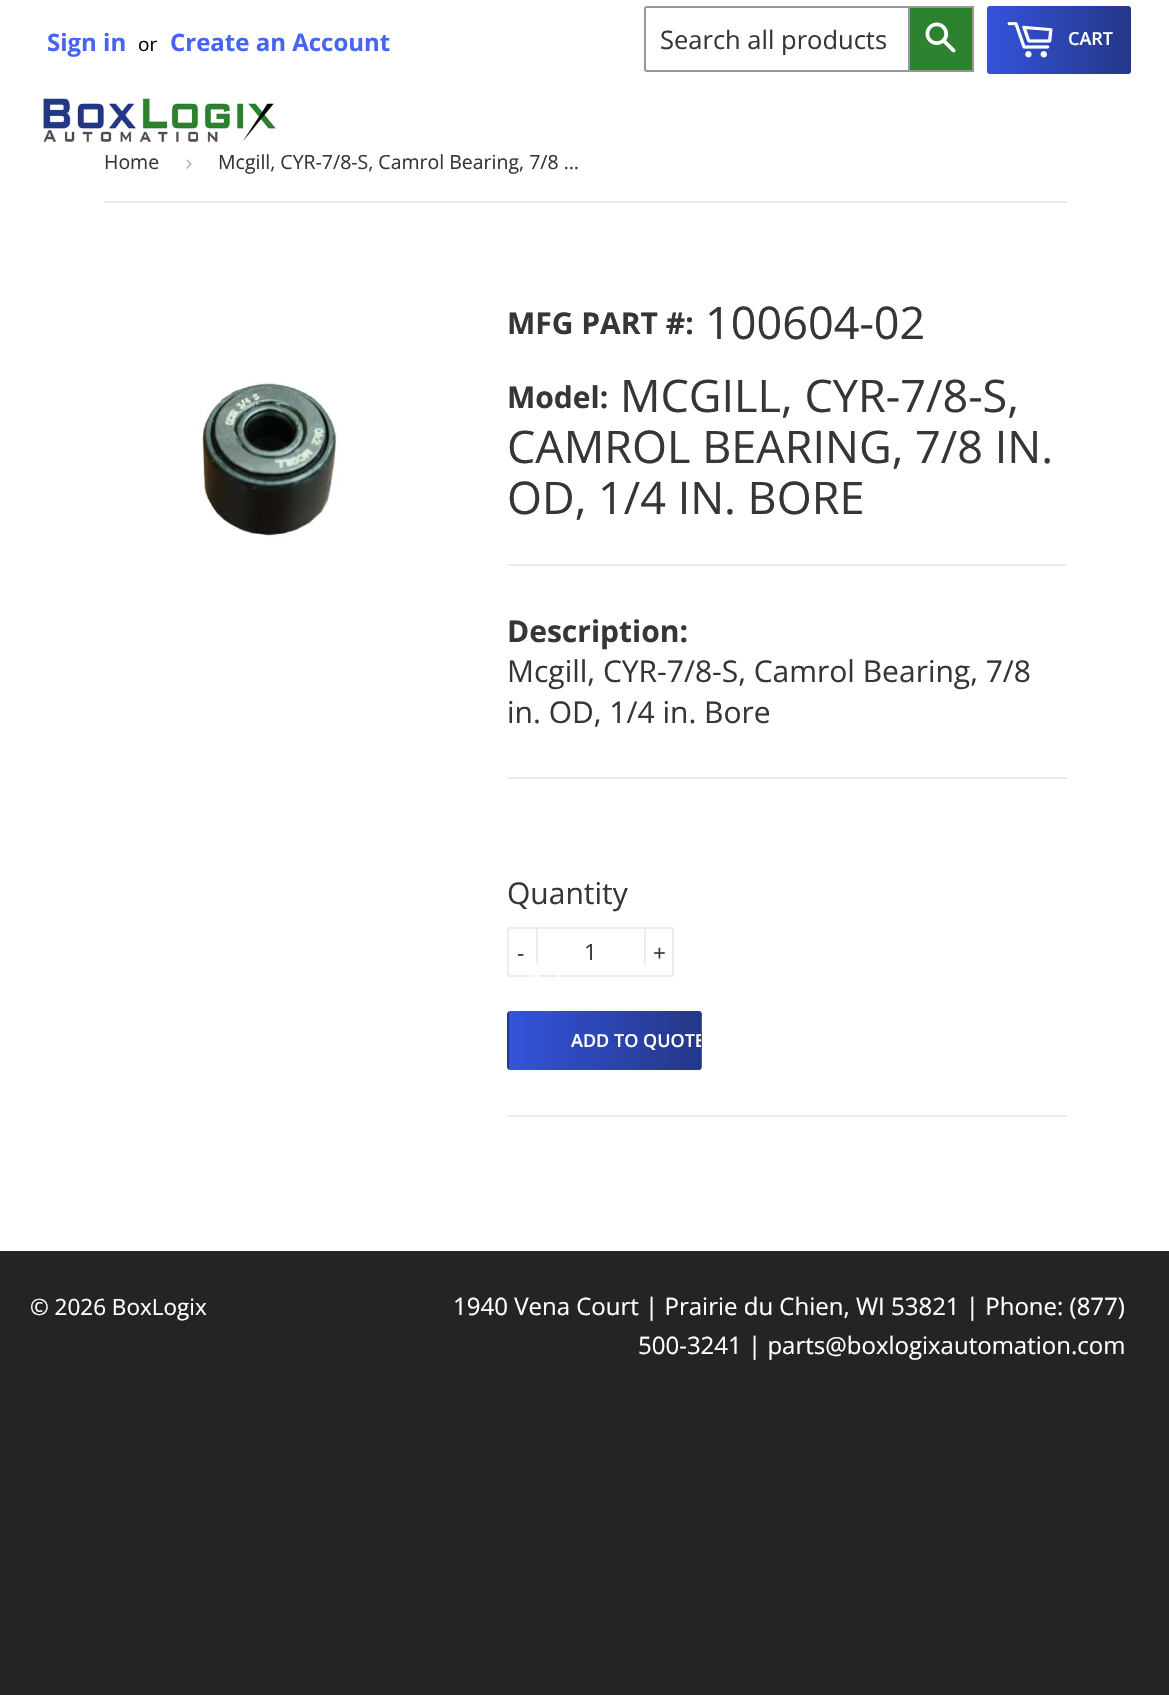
void draw(SkCanvas* canvas) {
    SkPaint paint;
    paint.setAntiAlias(true);
    canvas->clear(0xFF242424);
    paint.setColor(0xFFFFFFFF);
    canvas->drawRect(SkRect::MakeXYWH(0, 0, 1169, 1251), paint);
    SkFont font1(fontMgr->matchFamilyStyle("Open Sans", SkFontStyle::Bold()), 24);
    font1.setSubpixel(true);
    paint.setColor(0xFF4665F2);
    canvas->drawString("Sign in", 47, 51, font1, paint);
    SkFont font2(fontMgr->matchFamilyStyle("Open Sans", SkFontStyle::Normal()), 19);
    font2.setSubpixel(true);
    paint.setColor(0xFF000000);
    canvas->drawString("or", 138, 51, font2, paint);
    paint.setColor(0xFF4665F2);
    canvas->drawString("Create an Account", 170, 51, font1, paint);
    paint.setStyle(SkPaint::kStroke_Style);
    paint.setStrokeWidth(2);
    paint.setColor(0xFF979797);
    canvas->drawRoundRect(SkRect::MakeXYWH(645, 7, 328, 64), 2, 2, paint);
    SkFont font3(fontMgr->matchFamilyStyle("Open Sans", SkFontStyle::Normal()), 25.5f);
    font3.setSubpixel(true);
    paint.setStyle(SkPaint::kFill_Style);
    paint.setColor(0xFF363636);
    canvas->drawString("Search all products", 660, 49, font3, paint);
    paint.setColor(0xFF2C822F);
    canvas->drawRect(SkRect::MakeXYWH(909, 7, 64, 64), paint);
    paint.setStyle(SkPaint::kStroke_Style);
    paint.setColor(0xFF979797);
    canvas->drawRect(SkRect::MakeXYWH(909, 7, 64, 64), paint);
    canvas->drawImageRect(SkImages::DeferredFromEncodedData(SkData::MakeFromFileName("img1.png")), SkRect::MakeXYWH(925, 22, 31, 31), SkSamplingOptions());
    paint.setStyle(SkPaint::kFill_Style);
    {
        const SkColor colors[] = {0xFF3453DB, 0xFF253787};
        const float stops[] = {0, 1};
        const SkPoint ends[] = {{987, 40}, {1131, 40}};
        paint.setShader(SkGradientShader::MakeLinear(ends, colors, stops, 2, SkTileMode::kClamp));
        paint.setAlpha(255);
    }
    canvas->drawRoundRect(SkRect::MakeXYWH(987, 6, 144, 68), 3, 3, paint);
    canvas->drawImageRect(SkImages::DeferredFromEncodedData(SkData::MakeFromFileName("img2.png")), SkRect::MakeXYWH(1007, 22, 46, 36), SkSamplingOptions());
    SkFont font4(fontMgr->matchFamilyStyle("Open Sans", SkFontStyle(600, SkFontStyle::kNormal_Width, SkFontStyle::kUpright_Slant)), 18);
    font4.setSubpixel(true);
    paint.setShader(nullptr);
    paint.setColor(0xFFFFFFFF);
    canvas->drawString("CART", 1068, 45, font4, paint);
    canvas->drawImageRect(SkImages::DeferredFromEncodedData(SkData::MakeFromFileName("img3.png")), SkRect::MakeXYWH(43, 98, 233, 44), SkSamplingOptions());
    paint.setColor(0xFFECECEC);
    canvas->drawRect(SkRect::MakeXYWH(104, 201, 963, 2), paint);
    SkFont font5(fontMgr->matchFamilyStyle("Open Sans", SkFontStyle::Normal()), 19.5f);
    font5.setSubpixel(true);
    paint.setColor(0xFF363636);
    canvas->drawString("Home", 104, 169, font5, paint);
    SkFont font6(fontMgr->matchFamilyStyle("Liberation Sans", SkFontStyle::Normal()), 22.5f);
    font6.setSubpixel(true);
    paint.setColor(0xFFBBBBBB);
    canvas->drawString("›", 185, 170, font6, paint);
    paint.setColor(0xFF363636);
    canvas->drawString("Mcgill, CYR-7/8-S, Camrol Bearing, 7/8 …", 218, 169, font5, paint);
    canvas->drawImageRect(SkImages::DeferredFromEncodedData(SkData::MakeFromFileName("img4.png")), SkRect::MakeXYWH(197, 382, 145, 157), SkSamplingOptions());
    SkFont font7(fontMgr->matchFamilyStyle("Open Sans", SkFontStyle::Bold()), 30);
    font7.setSubpixel(true);
    canvas->drawString("MFG PART #:", 507, 334, font7, paint);
    SkFont font8(fontMgr->matchFamilyStyle("Open Sans", SkFontStyle::Normal()), 45);
    font8.setSubpixel(true);
    canvas->drawString("100604-02", 705, 339, font8, paint);
    canvas->drawString("Model:", 507, 408, font7, paint);
    canvas->drawString("MCGILL, CYR-7/8-S,", 620, 412, font8, paint);
    canvas->drawString("CAMROL BEARING, 7/8 IN.", 507, 463, font8, paint);
    canvas->drawString("OD, 1/4 IN. BORE", 507, 514, font8, paint);
    paint.setColor(0xFFECECEC);
    canvas->drawRect(SkRect::MakeXYWH(507, 564, 560, 2), paint);
    paint.setColor(0xFF363636);
    canvas->drawString("Description:", 507, 642, font7, paint);
    SkFont font9(fontMgr->matchFamilyStyle("Open Sans", SkFontStyle::Normal()), 30);
    font9.setSubpixel(true);
    canvas->drawString("Mcgill, CYR-7/8-S, Camrol Bearing, 7/8", 507, 682, font9, paint);
    canvas->drawString("in. OD, 1/4 in. Bore", 507, 723, font9, paint);
    paint.setColor(0xFFECECEC);
    canvas->drawRect(SkRect::MakeXYWH(507, 777, 560, 2), paint);
    paint.setColor(0xFF363636);
    canvas->drawString("Quantity", 507, 904, font9, paint);
    paint.setStyle(SkPaint::kStroke_Style);
    paint.setColor(0xFFECECEC);
    canvas->drawRoundRect(SkRect::MakeXYWH(508, 928, 165, 48), 2, 2, paint);
    paint.setStyle(SkPaint::kFill_Style);
    canvas->drawRect(SkRect::MakeXYWH(536, 927, 2, 39), paint);
    SkFont font10(fontMgr->matchFamilyStyle("Open Sans", SkFontStyle::Normal()), 22.5f);
    font10.setSubpixel(true);
    paint.setColor(0xFF363636);
    canvas->drawString("-", 517, 961, font10, paint);
    canvas->drawString("1", 584, 960, font10, paint);
    paint.setColor(0xFFECECEC);
    canvas->drawRect(SkRect::MakeXYWH(644, 927, 2, 39), paint);
    paint.setColor(0xFF363636);
    canvas->drawString("+", 653, 961, font10, paint);
    canvas->drawImageRect(SkImages::DeferredFromEncodedData(SkData::MakeFromFileName("img5.png")), SkRect::MakeXYWH(528, 963, 33, 14), SkSamplingOptions());
    canvas->save();
    canvas->clipPath(SkPathBuilder().moveTo(510, 1011).lineTo(699, 1011).cubicTo(700.5f, 1011, 702, 1012.5f, 702, 1014).lineTo(702, 1067).cubicTo(702, 1068.5f, 700.5f, 1070, 699, 1070).lineTo(510, 1070).cubicTo(508.5f, 1070, 507, 1068.5f, 507, 1067).lineTo(507, 1014).cubicTo(507, 1012.5f, 508.5f, 1011, 510, 1011).close().detach(), true);
    {
        const SkColor colors[] = {0xFF3453DB, 0xFF253787};
        const float stops[] = {0, 1};
        const SkPoint ends[] = {{317, 1040}, {509, 1040}};
        paint.setShader(SkGradientShader::MakeLinear(ends, colors, stops, 2, SkTileMode::kClamp));
        paint.setAlpha(255);
    }
    canvas->drawRect(SkRect::MakeXYWH(507, 1011, 2, 59), paint);
    {
        const SkColor colors[] = {0xFF3453DB, 0xFF253787};
        const float stops[] = {0, 1};
        const SkPoint ends[] = {{509, 1040}, {701, 1040}};
        paint.setShader(SkGradientShader::MakeLinear(ends, colors, stops, 2, SkTileMode::kClamp));
        paint.setAlpha(255);
    }
    canvas->drawRect(SkRect::MakeXYWH(509, 1011, 192, 59), paint);
    {
        const SkColor colors[] = {0xFF3453DB, 0xFF253787};
        const float stops[] = {0, 1};
        const SkPoint ends[] = {{701, 1040}, {893, 1040}};
        paint.setShader(SkGradientShader::MakeLinear(ends, colors, stops, 2, SkTileMode::kClamp));
        paint.setAlpha(255);
    }
    canvas->drawRect(SkRect::MakeXYWH(701, 1011, 1, 59), paint);
    canvas->restore();
    canvas->save();
    canvas->clipPath(SkPathBuilder().moveTo(510.5f, 1013).lineTo(699.5f, 1013).cubicTo(700.5f, 1013, 701, 1013.5f, 701, 1014.5f).lineTo(701, 1066.5f).cubicTo(701, 1067.5f, 700.5f, 1068, 699.5f, 1068).lineTo(510.5f, 1068).cubicTo(509.5f, 1068, 509, 1067.5f, 509, 1066.5f).lineTo(509, 1014.5f).cubicTo(509, 1013.5f, 509.5f, 1013, 510.5f, 1013).close().detach(), true);
    paint.setShader(nullptr);
    paint.setColor(0xFFFFFFFF);
    canvas->drawString("ADD TO QUOTE", 571, 1047, font4, paint);
    canvas->restore();
    paint.setColor(0xFFECECEC);
    canvas->drawRect(SkRect::MakeXYWH(507, 1115, 560, 2), paint);
    paint.setColor(0xFFFFFFFF);
    canvas->drawString("© 2026 BoxLogix", 30, 1315, font10, paint);
    SkFont font11(fontMgr->matchFamilyStyle("Open Sans", SkFontStyle::Normal()), 24);
    font11.setSubpixel(true);
    canvas->drawString("1940 Vena Court | Prairie du Chien, WI 53821 | Phone: (877)", 453, 1315, font11, paint);
    canvas->drawString("500-3241 | parts@boxlogixautomation.com", 638, 1354, font11, paint);
}
